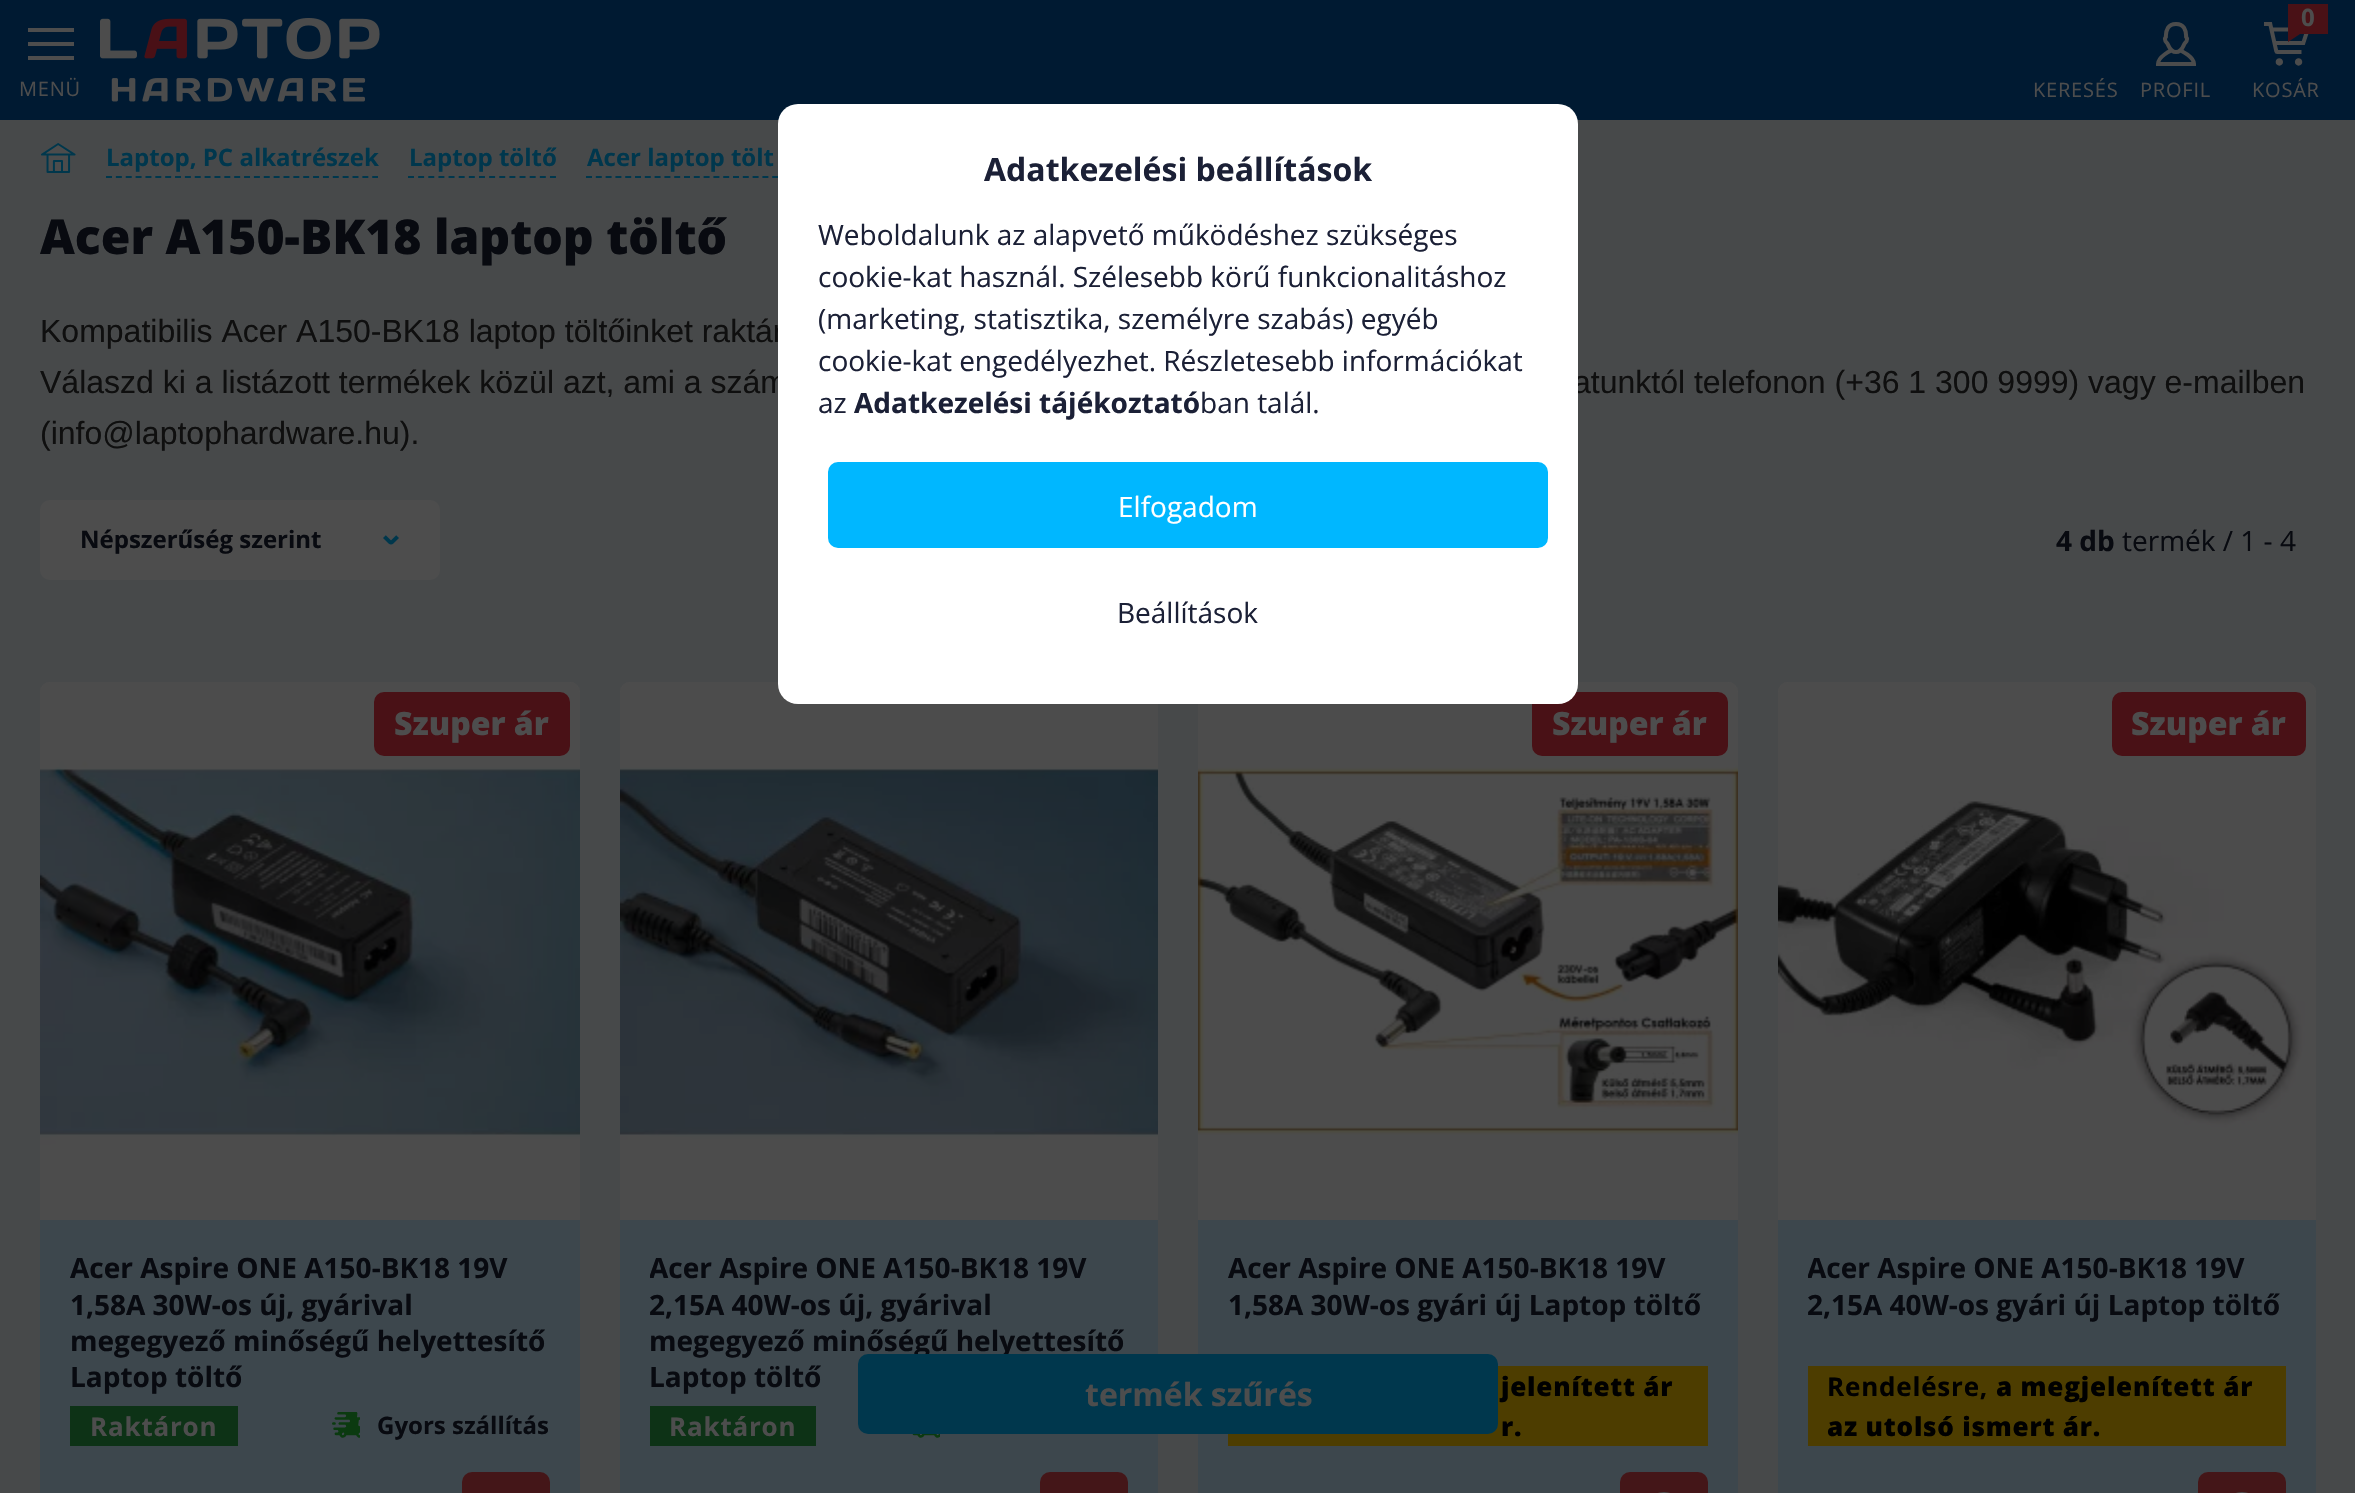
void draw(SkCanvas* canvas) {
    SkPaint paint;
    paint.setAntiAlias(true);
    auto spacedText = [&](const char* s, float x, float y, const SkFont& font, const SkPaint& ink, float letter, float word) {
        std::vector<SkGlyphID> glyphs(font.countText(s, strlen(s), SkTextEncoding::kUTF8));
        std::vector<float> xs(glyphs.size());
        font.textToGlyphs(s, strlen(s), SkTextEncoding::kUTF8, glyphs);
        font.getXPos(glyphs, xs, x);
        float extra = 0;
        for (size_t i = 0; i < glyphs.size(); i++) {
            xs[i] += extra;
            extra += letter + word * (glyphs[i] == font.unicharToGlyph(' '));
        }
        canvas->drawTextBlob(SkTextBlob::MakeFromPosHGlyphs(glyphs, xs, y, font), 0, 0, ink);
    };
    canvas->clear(0xFF47494A);
    paint.setColor(0xFF001A32);
    canvas->drawRect(SkRect::MakeXYWH(0, 0, 2355, 120), paint);
    paint.setColor(0xFF4D4D4D);
    canvas->drawRect(SkRect::MakeXYWH(28, 28, 46, 4), paint);
    canvas->drawRect(SkRect::MakeXYWH(28, 42, 46, 4), paint);
    canvas->drawRect(SkRect::MakeXYWH(28, 56, 46, 4), paint);
    SkFont font1(fontMgr->matchFamilyStyle("Open Sans", SkFontStyle::Normal()), 20);
    font1.setSubpixel(true);
    spacedText("MENÜ", 19, 96, font1, paint, 0.8f, 0);
    canvas->drawImageRect(SkImages::DeferredFromEncodedData(SkData::MakeFromFileName("img1.png")), SkRect::MakeXYWH(100, 18, 280, 84), SkSamplingOptions());
    spacedText("KERESÉS", 2033, 97, font1, paint, 0.8f, 0);
    canvas->drawImageRect(SkImages::DeferredFromEncodedData(SkData::MakeFromFileName("img2.png")), SkRect::MakeXYWH(2156, 22, 40, 44), SkSamplingOptions());
    spacedText("PROFIL", 2140, 97, font1, paint, 0.8f, 0);
    canvas->drawImageRect(SkImages::DeferredFromEncodedData(SkData::MakeFromFileName("img3.png")), SkRect::MakeXYWH(2264, 22, 45, 44), SkSamplingOptions());
    paint.setColor(0xFF491116);
    canvas->drawPath(SkPathBuilder(SkPathFillType::kEvenOdd).moveTo(2288, 4).lineTo(2328, 4).lineTo(2328, 34).lineTo(2300, 34).lineTo(2288, 42).close().detach(), paint);
    SkFont font2(fontMgr->matchFamilyStyle("Open Sans", SkFontStyle::Bold()), 24);
    font2.setSubpixel(true);
    paint.setColor(0xFF4D4D4D);
    canvas->drawString("0", 2301, 26, font2, paint);
    spacedText("KOSÁR", 2252, 97, font1, paint, 0.8f, 0);
    canvas->drawImageRect(SkImages::DeferredFromEncodedData(SkData::MakeFromFileName("img4.png")), SkRect::MakeXYWH(41, 143, 35, 30), SkSamplingOptions());
    paint.setStyle(SkPaint::kStroke_Style);
    paint.setStrokeWidth(2);
    paint.setColor(0xFF00374D);
    paint.setPathEffect(SkDashPathEffect::Make({{6, 3.86f}}, 0));
    canvas->drawPath(SkPathBuilder().moveTo(106, 177).lineTo(378, 177).detach(), paint);
    paint.setPathEffect(nullptr);
    paint.setStyle(SkPaint::kFill_Style);
    canvas->drawString("Laptop, PC alkatrészek", 106, 166, font2, paint);
    paint.setStyle(SkPaint::kStroke_Style);
    paint.setPathEffect(SkDashPathEffect::Make({{6, 4.14f}}, 0));
    canvas->drawPath(SkPathBuilder().moveTo(408, 177).lineTo(556, 177).detach(), paint);
    paint.setPathEffect(nullptr);
    paint.setStyle(SkPaint::kFill_Style);
    canvas->drawString("Laptop töltő", 409, 166, font2, paint);
    paint.setStyle(SkPaint::kStroke_Style);
    paint.setPathEffect(SkDashPathEffect::Make({{6, 3.8f}}, 0));
    canvas->drawPath(SkPathBuilder().moveTo(586, 177).lineTo(788, 177).detach(), paint);
    paint.setPathEffect(nullptr);
    paint.setStyle(SkPaint::kFill_Style);
    canvas->drawString("Acer laptop tölt", 587, 166, font2, paint);
    SkFont font3(fontMgr->matchFamilyStyle("Open Sans", SkFontStyle(800, SkFontStyle::kNormal_Width, SkFontStyle::kUpright_Slant)), 48);
    font3.setSubpixel(true);
    paint.setColor(0xFF080A10);
    canvas->drawString("Acer A150-BK18 laptop töltő", 40, 254, font3, paint);
    SkFont font4(fontMgr->matchFamilyStyle("Liberation Sans", SkFontStyle::Normal()), 32);
    font4.setSubpixel(true);
    paint.setColor(0xFF0F0F0F);
    canvas->drawString("Kompatibilis Acer A150-BK18 laptop töltőinket raktár", 40, 342, font4, paint);
    canvas->drawString("Válaszd ki a listázott termékek közül azt, ami a szám", 40, 393, font4, paint);
    canvas->drawString("atunktól telefonon (+36 1 300 9999) vagy e-mailben", 1573, 393, font4, paint);
    canvas->drawString("(info@laptophardware.hu).", 40, 444, font4, paint);
    paint.setColor(0xFF4D4D4D);
    canvas->drawRoundRect(SkRect::MakeXYWH(40, 500, 400, 80), 10, 10, paint);
    paint.setColor(0xFF080A10);
    canvas->drawString("Népszerűség szerint", 80, 548, font2, paint);
    canvas->drawImageRect(SkImages::DeferredFromEncodedData(SkData::MakeFromFileName("img5.png")), SkRect::MakeXYWH(383, 535, 16, 10), SkSamplingOptions());
    SkFont font5(fontMgr->matchFamilyStyle("Open Sans", SkFontStyle::Bold()), 28);
    font5.setSubpixel(true);
    canvas->drawString("4 db", 2056, 551, font5, paint);
    SkFont font6(fontMgr->matchFamilyStyle("Open Sans", SkFontStyle::Normal()), 28);
    font6.setSubpixel(true);
    canvas->drawString("termék / 1 - 4", 2122, 551, font6, paint);
    {
        const SkColor colors[] = {0xFF4B4B4B, 0xFF4D4D4D, 0xFF4D4D4D, 0xFF4B4B4B};
        const float stops[] = {0, 0.3f, 0.7f, 1};
        const SkPoint ends[] = {{305, 677}, {315, 1225}};
        paint.setShader(SkGradientShader::MakeLinear(ends, colors, stops, 4, SkTileMode::kClamp));
        paint.setAlpha(255);
    }
    canvas->drawPath(SkPathBuilder().moveTo(50, 682).lineTo(570, 682).cubicTo(575.5f, 682, 580, 686.5f, 580, 692).lineTo(580, 1220).lineTo(40, 1220).lineTo(40, 692).cubicTo(40, 686.5f, 44.5f, 682, 50, 682).close().detach(), paint);
    canvas->drawImageRect(SkImages::DeferredFromEncodedData(SkData::MakeFromFileName("img6.png")), SkRect::MakeXYWH(40, 682, 540, 538), SkSamplingOptions());
    paint.setShader(nullptr);
    paint.setColor(0xFF491116);
    canvas->drawRoundRect(SkRect::MakeXYWH(375, 693, 194, 62), 9, 9, paint);
    paint.setStyle(SkPaint::kStroke_Style);
    canvas->drawRoundRect(SkRect::MakeXYWH(375, 693, 194, 62), 9, 9, paint);
    SkFont font7(fontMgr->matchFamilyStyle("Open Sans", SkFontStyle(800, SkFontStyle::kNormal_Width, SkFontStyle::kUpright_Slant)), 32);
    font7.setSubpixel(true);
    paint.setStyle(SkPaint::kFill_Style);
    paint.setColor(0xFF4D4D4D);
    canvas->drawString("Szuper ár", 394, 735, font7, paint);
    paint.setColor(0xFF3D474D);
    canvas->drawRect(SkRect::MakeXYWH(40, 1220, 540, 273), paint);
    paint.setColor(0xFF080A10);
    canvas->drawString("Acer Aspire ONE A150-BK18 19V", 70, 1278, font5, paint);
    canvas->drawString("1,58A 30W-os új, gyárival", 70, 1315, font5, paint);
    canvas->drawString("megegyező minőségű helyettesítő", 70, 1351, font5, paint);
    canvas->drawString("Laptop töltő", 70, 1387, font5, paint);
    paint.setColor(0xFF0D3216);
    canvas->drawRect(SkRect::MakeXYWH(70, 1406, 168, 40), paint);
    SkFont font8(fontMgr->matchFamilyStyle("Open Sans", SkFontStyle::Bold()), 26);
    font8.setSubpixel(true);
    paint.setColor(0xFF4D4D4D);
    spacedText("Raktáron", 90, 1436, font8, paint, 0.8f, 0);
    canvas->drawImageRect(SkImages::DeferredFromEncodedData(SkData::MakeFromFileName("img7.png")), SkRect::MakeXYWH(332, 1412, 28, 26), SkSamplingOptions());
    paint.setColor(0xFF080A10);
    canvas->drawString("Gyors szállítás", 377, 1434, font2, paint);
    paint.setColor(0xFF441618);
    canvas->drawRoundRect(SkRect::MakeXYWH(462, 1472, 88, 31), 10, 10, paint);
    {
        const SkColor colors[] = {0xFF4B4B4B, 0xFF4D4D4D, 0xFF4D4D4D, 0xFF4B4B4B};
        const float stops[] = {0, 0.3f, 0.7f, 1};
        const SkPoint ends[] = {{884, 677}, {894, 1225}};
        paint.setShader(SkGradientShader::MakeLinear(ends, colors, stops, 4, SkTileMode::kClamp));
        paint.setAlpha(255);
    }
    canvas->drawPath(SkPathBuilder().moveTo(630, 682).lineTo(1148, 682).cubicTo(1153.5f, 682, 1158, 686.5f, 1158, 692).lineTo(1158, 1220).lineTo(620, 1220).lineTo(620, 692).cubicTo(620, 686.5f, 624.5f, 682, 630, 682).close().detach(), paint);
    canvas->drawImageRect(SkImages::DeferredFromEncodedData(SkData::MakeFromFileName("img8.png")), SkRect::MakeXYWH(620, 682, 538, 538), SkSamplingOptions());
    paint.setShader(nullptr);
    paint.setColor(0xFF3D474D);
    canvas->drawRect(SkRect::MakeXYWH(620, 1220, 538, 273), paint);
    canvas->save();
    canvas->clipRect(SkRect::MakeXYWH(650, 1250, 478, 146));
    paint.setColor(0xFF080A10);
    canvas->drawString("Acer Aspire ONE A150-BK18 19V", 649, 1278, font5, paint);
    canvas->restore();
    canvas->drawString("2,15A 40W-os új, gyárival", 649, 1315, font5, paint);
    canvas->drawString("megegyező minőségű helyettesítő", 649, 1351, font5, paint);
    canvas->drawString("Laptop töltő", 649, 1387, font5, paint);
    paint.setColor(0xFF0D3216);
    canvas->drawRect(SkRect::MakeXYWH(650, 1406, 166, 40), paint);
    paint.setColor(0xFF4D4D4D);
    spacedText("Raktáron", 669, 1436, font8, paint, 0.8f, 0);
    canvas->drawImageRect(SkImages::DeferredFromEncodedData(SkData::MakeFromFileName("img9.png")), SkRect::MakeXYWH(912, 1434, 28, 4), SkSamplingOptions());
    paint.setColor(0xFF441618);
    canvas->drawRoundRect(SkRect::MakeXYWH(1040, 1472, 88, 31), 10, 10, paint);
    {
        const SkColor colors[] = {0xFF4B4B4B, 0xFF4D4D4D, 0xFF4D4D4D, 0xFF4B4B4B};
        const float stops[] = {0, 0.3f, 0.7f, 1};
        const SkPoint ends[] = {{1463, 677}, {1473, 1225}};
        paint.setShader(SkGradientShader::MakeLinear(ends, colors, stops, 4, SkTileMode::kClamp));
        paint.setAlpha(255);
    }
    canvas->drawPath(SkPathBuilder().moveTo(1208, 682).lineTo(1728, 682).cubicTo(1733.5f, 682, 1738, 686.5f, 1738, 692).lineTo(1738, 1220).lineTo(1198, 1220).lineTo(1198, 692).cubicTo(1198, 686.5f, 1202.5f, 682, 1208, 682).close().detach(), paint);
    canvas->drawImageRect(SkImages::DeferredFromEncodedData(SkData::MakeFromFileName("img10.png")), SkRect::MakeXYWH(1198, 682, 540, 538), SkSamplingOptions());
    paint.setShader(nullptr);
    paint.setColor(0xFF491116);
    canvas->drawRoundRect(SkRect::MakeXYWH(1533, 693, 194, 62), 9, 9, paint);
    paint.setStyle(SkPaint::kStroke_Style);
    canvas->drawRoundRect(SkRect::MakeXYWH(1533, 693, 194, 62), 9, 9, paint);
    paint.setStyle(SkPaint::kFill_Style);
    paint.setColor(0xFF4D4D4D);
    canvas->drawString("Szuper ár", 1552, 735, font7, paint);
    paint.setColor(0xFF3D474D);
    canvas->drawRect(SkRect::MakeXYWH(1198, 1220, 540, 273), paint);
    paint.setColor(0xFF080A10);
    canvas->drawString("Acer Aspire ONE A150-BK18 19V", 1228, 1278, font5, paint);
    canvas->drawString("1,58A 30W-os gyári új Laptop töltő", 1228, 1315, font5, paint);
    paint.setColor(0xFF4D3D00);
    canvas->drawRect(SkRect::MakeXYWH(1228, 1366, 480, 80), paint);
    SkFont font9(fontMgr->matchFamilyStyle("Open Sans", SkFontStyle(800, SkFontStyle::kNormal_Width, SkFontStyle::kUpright_Slant)), 26);
    font9.setSubpixel(true);
    paint.setColor(0xFF000000);
    spacedText("jelenített ár", 1501, 1396, font9, paint, 0.8f, 0);
    spacedText("r.", 1501, 1436, font9, paint, 0.8f, 0);
    paint.setColor(0xFF441618);
    canvas->drawRoundRect(SkRect::MakeXYWH(1620, 1472, 88, 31), 10, 10, paint);
    canvas->drawImageRect(SkImages::DeferredFromEncodedData(SkData::MakeFromFileName("img11.png")), SkRect::MakeXYWH(1658, 1492, 12, 1), SkSamplingOptions());
    {
        const SkColor colors[] = {0xFF4B4B4B, 0xFF4D4D4D, 0xFF4D4D4D, 0xFF4B4B4B};
        const float stops[] = {0, 0.3f, 0.7f, 1};
        const SkPoint ends[] = {{2042, 677}, {2052, 1225}};
        paint.setShader(SkGradientShader::MakeLinear(ends, colors, stops, 4, SkTileMode::kClamp));
        paint.setAlpha(255);
    }
    canvas->drawPath(SkPathBuilder().moveTo(1788, 682).lineTo(2306, 682).cubicTo(2311.5f, 682, 2316, 686.5f, 2316, 692).lineTo(2316, 1220).lineTo(1778, 1220).lineTo(1778, 692).cubicTo(1778, 686.5f, 1782.5f, 682, 1788, 682).close().detach(), paint);
    canvas->drawImageRect(SkImages::DeferredFromEncodedData(SkData::MakeFromFileName("img12.png")), SkRect::MakeXYWH(1778, 682, 538, 538), SkSamplingOptions());
    paint.setShader(nullptr);
    paint.setColor(0xFF491116);
    canvas->drawRoundRect(SkRect::MakeXYWH(2113, 693, 192, 62), 9, 9, paint);
    paint.setStyle(SkPaint::kStroke_Style);
    canvas->drawRoundRect(SkRect::MakeXYWH(2113, 693, 192, 62), 9, 9, paint);
    paint.setStyle(SkPaint::kFill_Style);
    paint.setColor(0xFF4D4D4D);
    canvas->drawString("Szuper ár", 2131, 735, font7, paint);
    paint.setColor(0xFF3D474D);
    canvas->drawRect(SkRect::MakeXYWH(1778, 1220, 538, 273), paint);
    canvas->save();
    canvas->clipRect(SkRect::MakeXYWH(1808, 1250, 478, 72));
    paint.setColor(0xFF080A10);
    canvas->drawString("Acer Aspire ONE A150-BK18 19V", 1807, 1278, font5, paint);
    canvas->restore();
    canvas->drawString("2,15A 40W-os gyári új Laptop töltő", 1807, 1315, font5, paint);
    paint.setColor(0xFF4D3D00);
    canvas->drawRect(SkRect::MakeXYWH(1808, 1366, 478, 80), paint);
    paint.setColor(0xFF000000);
    spacedText("Rendelésre,", 1827, 1396, font8, paint, 0.8f, 0);
    spacedText("a megjelenített ár", 1996, 1396, font9, paint, 0.8f, 0);
    spacedText("az utolsó ismert ár.", 1827, 1436, font9, paint, 0.8f, 0);
    paint.setColor(0xFF441618);
    canvas->drawRoundRect(SkRect::MakeXYWH(2198, 1472, 88, 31), 10, 10, paint);
    canvas->drawImageRect(SkImages::DeferredFromEncodedData(SkData::MakeFromFileName("img11.png")), SkRect::MakeXYWH(2236, 1492, 12, 1), SkSamplingOptions());
    paint.setColor(0xFF00374D);
    canvas->drawRoundRect(SkRect::MakeXYWH(859, 1355, 638, 78), 9, 9, paint);
    paint.setStyle(SkPaint::kStroke_Style);
    canvas->drawRoundRect(SkRect::MakeXYWH(859, 1355, 638, 78), 9, 9, paint);
    SkFont font10(fontMgr->matchFamilyStyle("Open Sans", SkFontStyle::Bold()), 32);
    font10.setSubpixel(true);
    paint.setStyle(SkPaint::kFill_Style);
    paint.setColor(0xFF4D4D4D);
    canvas->drawString("termék szűrés", 1085, 1406, font10, paint);
    paint.setColor(0xFFFFFFFF);
    canvas->drawRoundRect(SkRect::MakeXYWH(778, 104, 800, 600), 20, 20, paint);
    paint.setColor(0xFF1B2036);
    canvas->drawString("Adatkezelési beállítások", 984, 181, font10, paint);
    canvas->drawString("Weboldalunk az alapvető működéshez szükséges", 818, 245, font6, paint);
    canvas->drawString("cookie-kat használ. Szélesebb körű funkcionalitáshoz", 818, 287, font6, paint);
    canvas->drawString("(marketing, statisztika, személyre szabás) egyéb", 818, 329, font6, paint);
    canvas->drawString("cookie-kat engedélyezhet. Részletesebb információkat", 818, 371, font6, paint);
    canvas->drawString("az", 818, 413, font6, paint);
    canvas->drawString("Adatkezelési tájékoztató", 854, 413, font5, paint);
    canvas->drawString("ban talál.", 1200, 413, font6, paint);
    paint.setColor(0xFF00B7FF);
    canvas->drawRoundRect(SkRect::MakeXYWH(829, 463, 718, 84), 9, 9, paint);
    paint.setStyle(SkPaint::kStroke_Style);
    canvas->drawRoundRect(SkRect::MakeXYWH(829, 463, 718, 84), 9, 9, paint);
    paint.setStyle(SkPaint::kFill_Style);
    paint.setColor(0xFFFFFFFF);
    canvas->drawString("Elfogadom", 1118, 517, font6, paint);
    paint.setColor(0xFF1B2036);
    canvas->drawString("Beállítások", 1117, 623, font6, paint);
}
